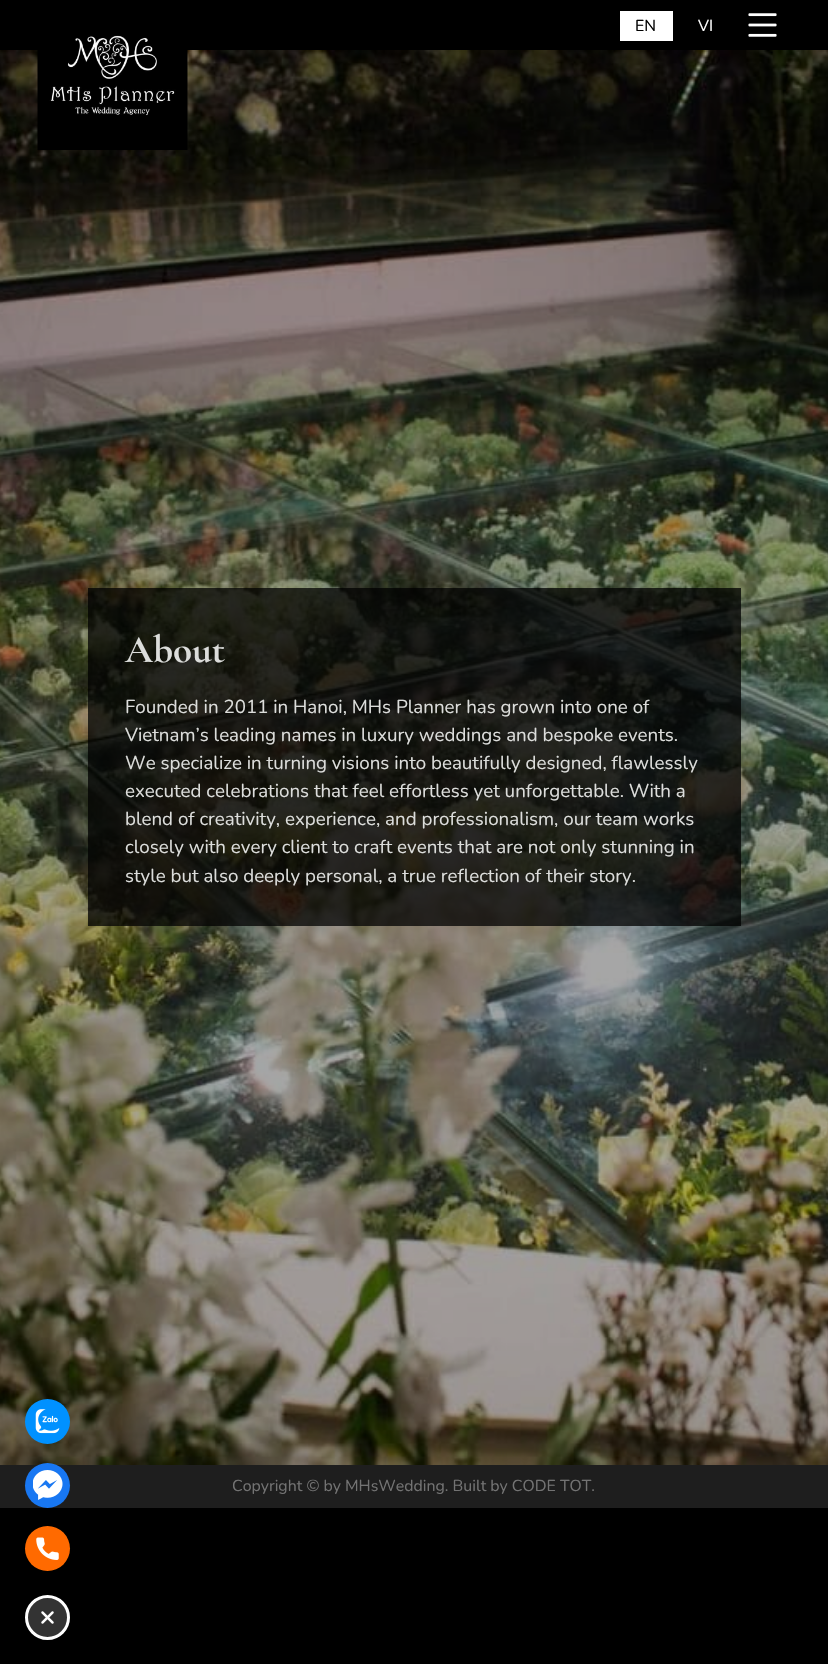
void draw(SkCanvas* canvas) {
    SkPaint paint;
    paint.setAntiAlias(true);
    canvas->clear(0xFF000000);
    paint.setColor(0xFFFFFFFF);
    canvas->drawRect(SkRect::MakeXYWH(620, 11, 53, 30), paint);
    SkFont font1(fontMgr->matchFamilyStyle("Nunito", SkFontStyle::Normal()), 15.9f);
    font1.setSubpixel(true);
    paint.setColor(0xFF000000);
    canvas->drawString("EN", 635, 31, font1, paint);
    paint.setColor(0xFFFFFFFF);
    canvas->drawString("VI", 698, 31, font1, paint);
    canvas->drawImageRect(SkImages::DeferredFromEncodedData(SkData::MakeFromFileName("img1.png")), SkRect::MakeXYWH(748, 13, 29, 24), SkSamplingOptions());
    canvas->drawImageRect(SkImages::DeferredFromEncodedData(SkData::MakeFromFileName("img3.png")), SkRect::MakeXYWH(0, 50, 828, 1415), SkSamplingOptions());
    canvas->drawImageRect(SkImages::DeferredFromEncodedData(SkData::MakeFromFileName("img2.png")), SkRect::MakeXYWH(37, 35, 151, 115), SkSamplingOptions());
    paint.setColor(0xBF000000);
    canvas->drawRect(SkRect::MakeXYWH(88, 588, 653, 338), paint);
    SkFont font2(fontMgr->matchFamilyStyle("Cormorant Garamond", SkFontStyle::Bold()), 39);
    font2.setSubpixel(true);
    paint.setColor(0xFFDCDDDB);
    canvas->drawString("About", 125, 662, font2, paint);
    SkFont font3(fontMgr->matchFamilyStyle("Nunito", SkFontStyle::Normal()), 18.75f);
    font3.setSubpixel(true);
    canvas->drawString("Founded in 2011 in Hanoi, MHs Planner has grown into one of", 125, 713, font3, paint);
    canvas->drawString("Vietnam’s leading names in luxury weddings and bespoke events.", 125, 741, font3, paint);
    canvas->drawString("We specialize in turning visions into beautifully designed, flawlessly", 125, 769, font3, paint);
    canvas->drawString("executed celebrations that feel effortless yet unforgettable. With a", 125, 797, font3, paint);
    canvas->drawString("blend of creativity, experience, and professionalism, our team works", 125, 825, font3, paint);
    canvas->drawString("closely with every client to craft events that are not only stunning in", 125, 853, font3, paint);
    canvas->drawString("style but also deeply personal, a true reflection of their story.", 125, 882, font3, paint);
    paint.setColor(0xFF0091FF);
    canvas->drawCircle(47.5f, 1421.5f, 22.5f, paint);
    canvas->drawImageRect(SkImages::DeferredFromEncodedData(SkData::MakeFromFileName("img4.png")), SkRect::MakeXYWH(35, 1409, 25, 25), SkSamplingOptions());
    paint.setColor(0xFF1E1E1E);
    canvas->drawRect(SkRect::MakeXYWH(0, 1465, 828, 43), paint);
    paint.setColor(0xFF1877F2);
    canvas->drawCircle(47.5f, 1485.5f, 22.5f, paint);
    canvas->drawImageRect(SkImages::DeferredFromEncodedData(SkData::MakeFromFileName("img5.png")), SkRect::MakeXYWH(33, 1470, 30, 30), SkSamplingOptions());
    paint.setColor(0xFFFF6A00);
    canvas->drawCircle(47.5f, 1548.5f, 22.5f, paint);
    canvas->drawImageRect(SkImages::DeferredFromEncodedData(SkData::MakeFromFileName("img6.png")), SkRect::MakeXYWH(36, 1537, 23, 23), SkSamplingOptions());
    paint.setColor(0xFF333333);
    canvas->drawCircle(47.5f, 1617.5f, 21, paint);
    paint.setStyle(SkPaint::kStroke_Style);
    paint.setStrokeWidth(3);
    paint.setColor(0xFFFEFEFE);
    canvas->drawCircle(47.5f, 1617.5f, 21, paint);
    canvas->drawImageRect(SkImages::DeferredFromEncodedData(SkData::MakeFromFileName("img7.png")), SkRect::MakeXYWH(41, 1611, 13, 13), SkSamplingOptions());
    paint.setStyle(SkPaint::kFill_Style);
    paint.setColor(0xFF737373);
    canvas->drawString("Copyright © by MHsWedding. Built by CODE TOT.", 232, 1491, font1, paint);
}
